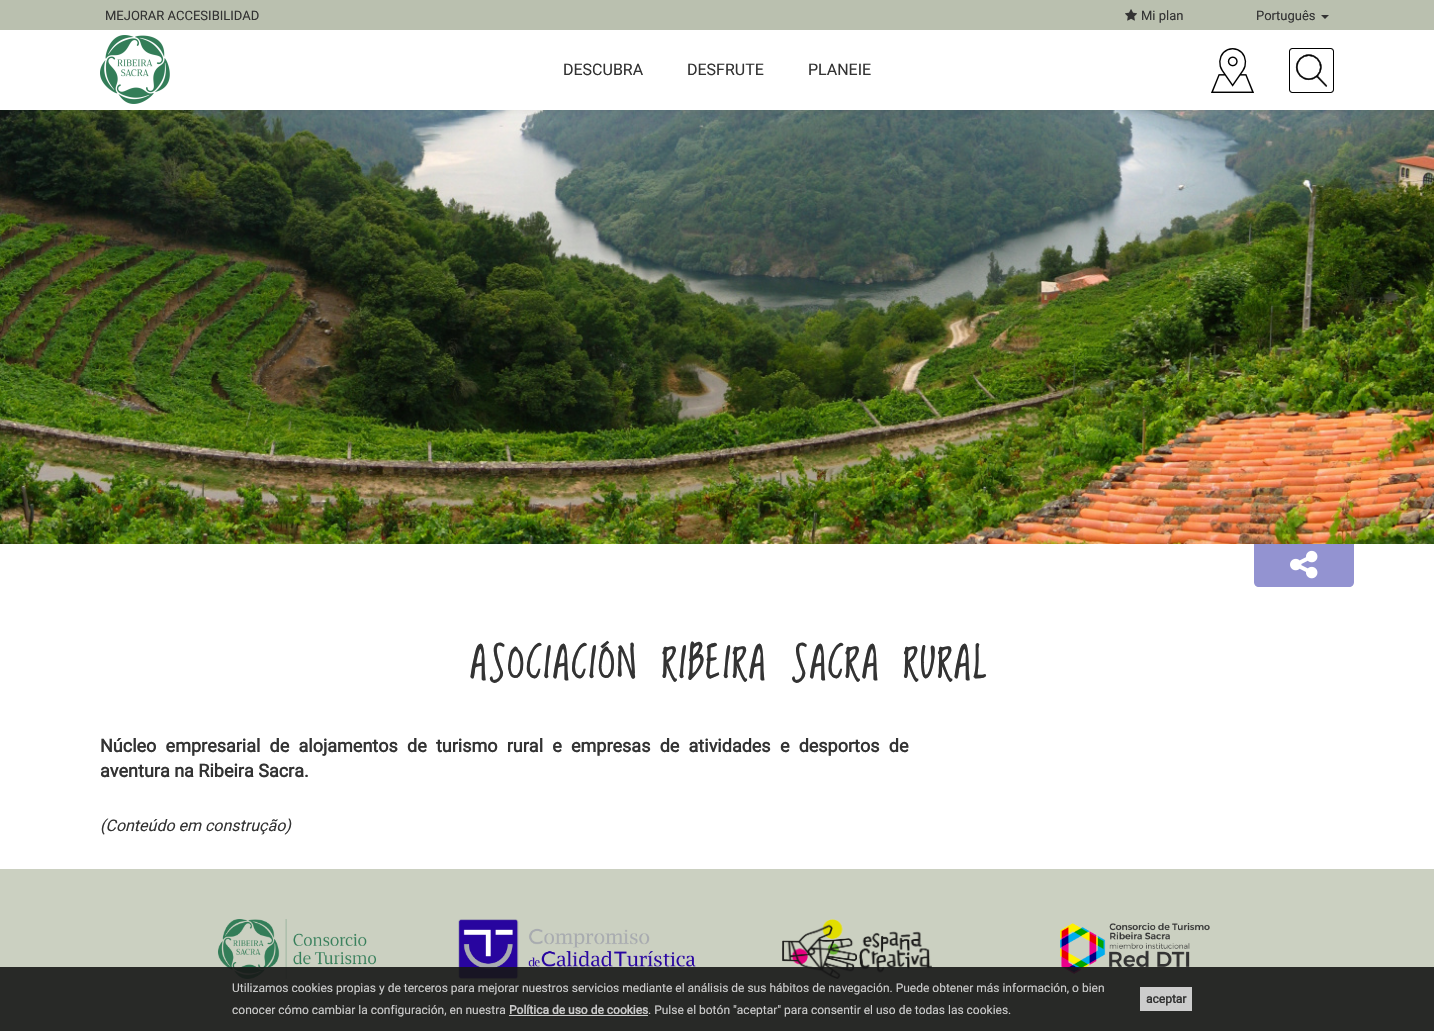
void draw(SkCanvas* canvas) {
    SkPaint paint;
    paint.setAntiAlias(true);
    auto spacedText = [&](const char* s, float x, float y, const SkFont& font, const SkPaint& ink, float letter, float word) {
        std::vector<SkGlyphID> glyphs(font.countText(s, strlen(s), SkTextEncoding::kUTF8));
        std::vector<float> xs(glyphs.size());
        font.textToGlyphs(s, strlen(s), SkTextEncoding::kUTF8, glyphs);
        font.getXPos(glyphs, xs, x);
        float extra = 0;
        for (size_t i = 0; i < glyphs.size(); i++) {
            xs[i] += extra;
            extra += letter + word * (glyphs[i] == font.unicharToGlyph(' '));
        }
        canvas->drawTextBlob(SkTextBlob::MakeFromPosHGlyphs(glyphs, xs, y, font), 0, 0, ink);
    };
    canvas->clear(0xFFFFFFFF);
    canvas->drawImageRect(SkImages::DeferredFromEncodedData(SkData::MakeFromFileName("img5.png")), SkRect::MakeXYWH(0, 110, 1434, 434), SkSamplingOptions());
    paint.setColor(0x12000000);
    paint.setMaskFilter(SkMaskFilter::MakeBlur(kNormal_SkBlurStyle, 2.5f));
    canvas->drawRect(SkRect::MakeXYWH(0, 1, 1434, 110), paint);
    paint.setMaskFilter(nullptr);
    paint.setColor(0xFFFFFFFF);
    canvas->drawRect(SkRect::MakeXYWH(0, 30, 1434, 80), paint);
    paint.setColor(0xFFBAC0AF);
    canvas->drawRect(SkRect::MakeXYWH(0, 0, 1434, 30), paint);
    SkFont font1(fontMgr->matchFamilyStyle("Roboto", SkFontStyle::Normal()), 13);
    font1.setSubpixel(true);
    paint.setColor(0xFF333333);
    canvas->drawString("MEJORAR ACCESIBILIDAD", 105, 20, font1, paint);
    canvas->drawImageRect(SkImages::DeferredFromEncodedData(SkData::MakeFromFileName("img1.png")), SkRect::MakeXYWH(1125, 9, 12, 12), SkSamplingOptions());
    canvas->drawString("Mi plan", 1141, 20, font1, paint);
    canvas->drawString("Português", 1256, 20, font1, paint);
    canvas->drawPath(SkPathBuilder().moveTo(1321, 15).lineTo(1329, 15).lineTo(1325, 19).close().detach(), paint);
    canvas->drawImageRect(SkImages::DeferredFromEncodedData(SkData::MakeFromFileName("img2.png")), SkRect::MakeXYWH(100, 35, 70, 69), SkSamplingOptions());
    SkFont font2(fontMgr->matchFamilyStyle("Roboto", SkFontStyle::Normal()), 16);
    font2.setSubpixel(true);
    canvas->drawString("DESCUBRA", 563, 75, font2, paint);
    canvas->drawString("DESFRUTE", 687, 75, font2, paint);
    canvas->drawString("PLANEIE", 808, 75, font2, paint);
    canvas->drawImageRect(SkImages::DeferredFromEncodedData(SkData::MakeFromFileName("img3.png")), SkRect::MakeXYWH(1211, 48, 43, 45), SkSamplingOptions());
    canvas->drawImageRect(SkImages::DeferredFromEncodedData(SkData::MakeFromFileName("img4.png")), SkRect::MakeXYWH(1289, 48, 45, 45), SkSamplingOptions());
    paint.setColor(0xFF9393D1);
    canvas->drawPath(SkPathBuilder().moveTo(1254, 544).lineTo(1354, 544).lineTo(1354, 582).cubicTo(1354, 585, 1352, 587, 1349, 587).lineTo(1259, 587).cubicTo(1256, 587, 1254, 585, 1254, 582).close().detach(), paint);
    canvas->drawImageRect(SkImages::DeferredFromEncodedData(SkData::MakeFromFileName("img6.png")), SkRect::MakeXYWH(1290, 550, 28, 29), SkSamplingOptions());
    SkFont font3(fontMgr->matchFamilyStyle("Loved by the King", SkFontStyle::Bold()), 40);
    font3.setSubpixel(true);
    paint.setColor(0xFF333333);
    spacedText("ASOCIACIÓN RIBEIRA SACRA RURAL", 470, 678, font3, paint, 3, 0);
    SkFont font4(fontMgr->matchFamilyStyle("Roboto", SkFontStyle::Bold()), 18);
    font4.setSubpixel(true);
    spacedText("Núcleo empresarial de alojamentos de turismo rural e empresas de atividades e desportos de", 100, 752, font4, paint, 0, 4.75f);
    canvas->drawString("aventura na Ribeira Sacra.", 100, 777, font4, paint);
    SkFont font5(fontMgr->matchFamilyStyle("Roboto", SkFontStyle::Italic()), 16);
    font5.setSubpixel(true);
    canvas->drawString("(Conteúdo em construção)", 100, 831, font5, paint);
    paint.setColor(0xFFCBD0C1);
    canvas->drawRect(SkRect::MakeXYWH(0, 869, 1434, 162), paint);
    canvas->drawImageRect(SkImages::DeferredFromEncodedData(SkData::MakeFromFileName("img7.png")), SkRect::MakeXYWH(218, 919, 158, 60), SkSamplingOptions());
    canvas->drawImageRect(SkImages::DeferredFromEncodedData(SkData::MakeFromFileName("img8.png")), SkRect::MakeXYWH(458, 919, 238, 60), SkSamplingOptions());
    canvas->drawImageRect(SkImages::DeferredFromEncodedData(SkData::MakeFromFileName("img9.png")), SkRect::MakeXYWH(782, 919, 150, 60), SkSamplingOptions());
    canvas->drawImageRect(SkImages::DeferredFromEncodedData(SkData::MakeFromFileName("img10.png")), SkRect::MakeXYWH(1060, 923, 150, 51), SkSamplingOptions());
    paint.setColor(0xE6161616);
    canvas->drawRect(SkRect::MakeXYWH(0, 967, 1434, 64), paint);
    SkFont font6(fontMgr->matchFamilyStyle("Roboto", SkFontStyle::Normal()), 12);
    font6.setSubpixel(true);
    paint.setColor(0xFFCCCCCC);
    canvas->drawString("Utilizamos cookies propias y de terceros para mejorar nuestros servicios mediante el análisis de sus hábitos de navegación. Puede obtener más información, o bien", 232, 992, font6, paint);
    canvas->drawRect(SkRect::MakeXYWH(1140, 987, 52, 24), paint);
    SkFont font7(fontMgr->matchFamilyStyle("Roboto", SkFontStyle::Bold()), 12);
    font7.setSubpixel(true);
    paint.setColor(0xFF333333);
    canvas->drawString("aceptar", 1146, 1003, font7, paint);
    paint.setColor(0xFFCCCCCC);
    canvas->drawString("conocer cómo cambiar la configuración, en nuestra", 232, 1014, font6, paint);
    canvas->drawString("Política de uso de cookies", 509, 1014, font7, paint);
    canvas->drawString(". Pulse el botón \"aceptar\" para consentir el uso de todas las cookies.", 648, 1014, font6, paint);
    canvas->drawRect(SkRect::MakeXYWH(509, 1015, 139, 1), paint);
}
